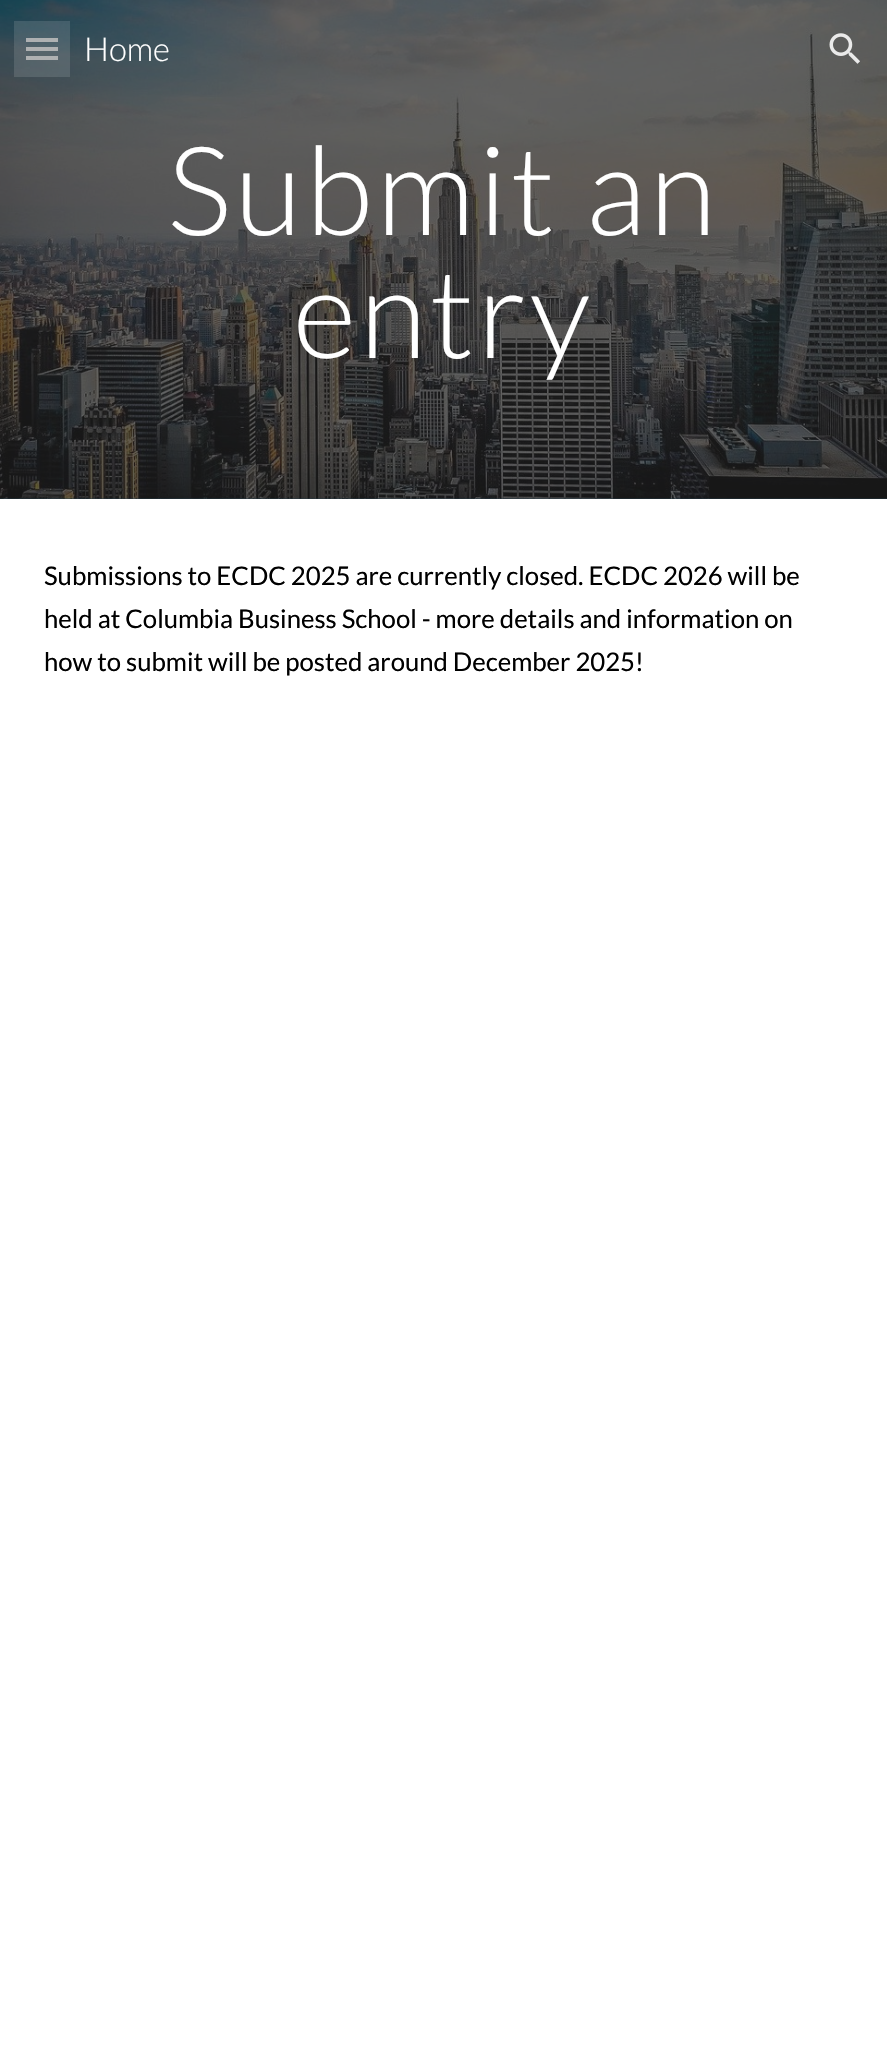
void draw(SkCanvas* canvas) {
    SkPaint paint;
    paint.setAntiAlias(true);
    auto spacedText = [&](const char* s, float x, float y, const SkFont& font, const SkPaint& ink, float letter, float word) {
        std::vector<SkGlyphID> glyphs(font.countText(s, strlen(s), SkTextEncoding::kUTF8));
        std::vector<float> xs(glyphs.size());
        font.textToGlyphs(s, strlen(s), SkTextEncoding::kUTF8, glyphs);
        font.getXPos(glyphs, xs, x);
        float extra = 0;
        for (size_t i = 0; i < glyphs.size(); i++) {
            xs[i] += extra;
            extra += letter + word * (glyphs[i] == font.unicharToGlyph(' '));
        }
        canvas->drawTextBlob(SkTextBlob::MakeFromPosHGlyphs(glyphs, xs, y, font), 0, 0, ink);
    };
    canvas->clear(0xFFFFFFFF);
    paint.setColor(0xFF213843);
    canvas->drawRect(SkRect::MakeXYWH(0, 498, 887, 1), paint);
    canvas->drawImageRect(SkImages::DeferredFromEncodedData(SkData::MakeFromFileName("img2.png")), SkRect::MakeXYWH(0, 0, 887, 499), SkSamplingOptions());
    paint.setColor(0xE0B2B2B2);
    canvas->drawRect(SkRect::MakeXYWH(26, 38, 32, 4), paint);
    canvas->drawRect(SkRect::MakeXYWH(26, 47, 32, 4), paint);
    canvas->drawRect(SkRect::MakeXYWH(26, 56, 32, 4), paint);
    paint.setColor(0x1FFFFFFF);
    canvas->drawRect(SkRect::MakeXYWH(14, 21, 56, 56), paint);
    SkFont font1(fontMgr->matchFamilyStyle("Lato", SkFontStyle(300, SkFontStyle::kNormal_Width, SkFontStyle::kUpright_Slant)), 33);
    font1.setSubpixel(true);
    paint.setColor(0xFFFFFFFF);
    canvas->drawString("Home", 84, 61, font1, paint);
    canvas->drawImageRect(SkImages::DeferredFromEncodedData(SkData::MakeFromFileName("img1.png")), SkRect::MakeXYWH(829, 33, 31, 31), SkSamplingOptions());
    SkFont font2(fontMgr->matchFamilyStyle("Lato", SkFontStyle(300, SkFontStyle::kNormal_Width, SkFontStyle::kUpright_Slant)), 123.5f);
    font2.setSubpixel(true);
    spacedText("Submit an", 167, 235, font2, paint, 3.5f, 0);
    spacedText("entry", 293, 358, font2, paint, 3.5f, 0);
    SkFont font3(fontMgr->matchFamilyStyle("Lato", SkFontStyle::Normal()), 25.7f);
    font3.setSubpixel(true);
    paint.setColor(0xFF000000);
    canvas->drawString("Submissions to ECDC 2025 are currently closed. ECDC 2026 will be", 44, 585, font3, paint);
    canvas->drawString("held at Columbia Business School - more details and information on", 44, 628, font3, paint);
    canvas->drawString("how to submit will be posted around December 2025!", 44, 671, font3, paint);
}
